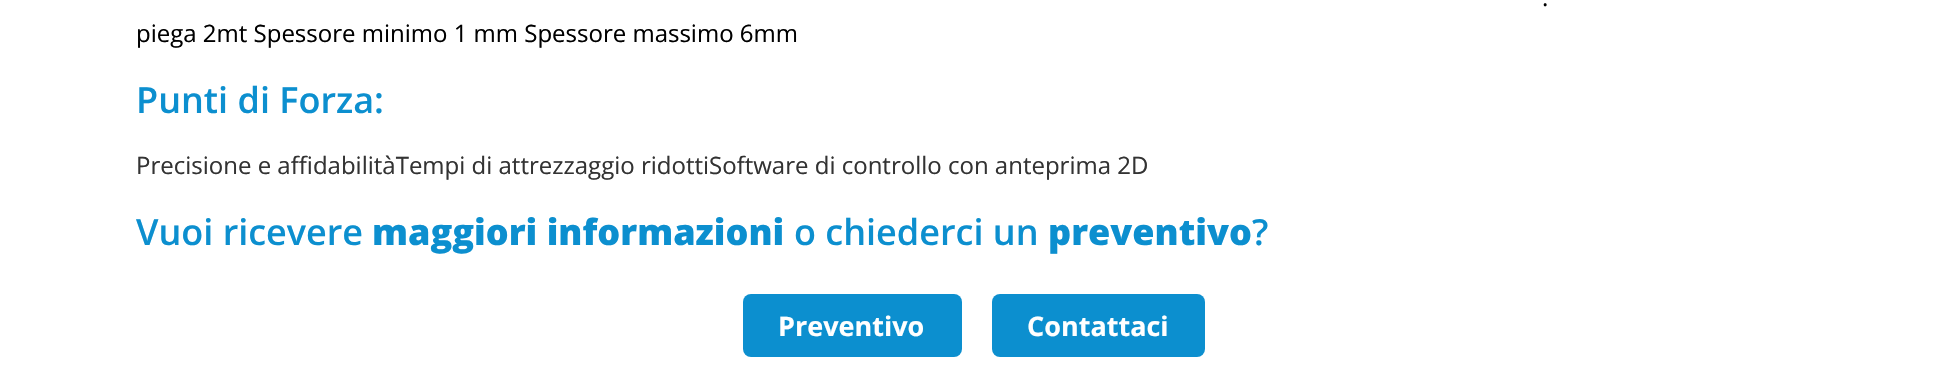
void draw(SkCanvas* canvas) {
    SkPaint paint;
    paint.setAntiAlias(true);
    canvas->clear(0xFFFFFFFF);
    SkFont font1(fontMgr->matchFamilyStyle("Open Sans", SkFontStyle::Normal()), 24);
    font1.setSubpixel(true);
    paint.setColor(0xFF000000);
    canvas->drawString(".", 1542, 6, font1, paint);
    canvas->drawString("piega 2mt Spessore minimo 1 mm Spessore massimo 6mm", 136, 42, font1, paint);
    SkFont font2(fontMgr->matchFamilyStyle("Open Sans", SkFontStyle(600, SkFontStyle::kNormal_Width, SkFontStyle::kUpright_Slant)), 36);
    font2.setSubpixel(true);
    paint.setColor(0xFF0C8FCF);
    canvas->drawString("Punti di Forza:", 136, 113, font2, paint);
    paint.setColor(0xFF333333);
    canvas->drawString("Precisione e affidabilitàTempi di attrezzaggio ridottiSoftware di controllo con anteprima 2D", 136, 174, font1, paint);
    paint.setColor(0xFF0C8FCF);
    canvas->drawString("Vuoi ricevere", 136, 245, font2, paint);
    SkFont font3(fontMgr->matchFamilyStyle("Open Sans", SkFontStyle(800, SkFontStyle::kNormal_Width, SkFontStyle::kUpright_Slant)), 36);
    font3.setSubpixel(true);
    canvas->drawString("maggiori informazioni", 372, 245, font3, paint);
    canvas->drawString("o chiederci un", 794, 245, font2, paint);
    canvas->drawString("preventivo", 1048, 245, font3, paint);
    canvas->drawString("?", 1252, 245, font2, paint);
    canvas->drawRoundRect(SkRect::MakeXYWH(743, 294, 219, 63), 8, 8, paint);
    SkFont font4(fontMgr->matchFamilyStyle("Open Sans", SkFontStyle::Bold()), 27);
    font4.setSubpixel(true);
    paint.setColor(0xFFFFFFFF);
    canvas->drawString("Preventivo", 778, 336, font4, paint);
    paint.setColor(0xFF0C8FCF);
    canvas->drawRoundRect(SkRect::MakeXYWH(992, 294, 213, 63), 8, 8, paint);
    paint.setColor(0xFFFFFFFF);
    canvas->drawString("Contattaci", 1027, 336, font4, paint);
}
